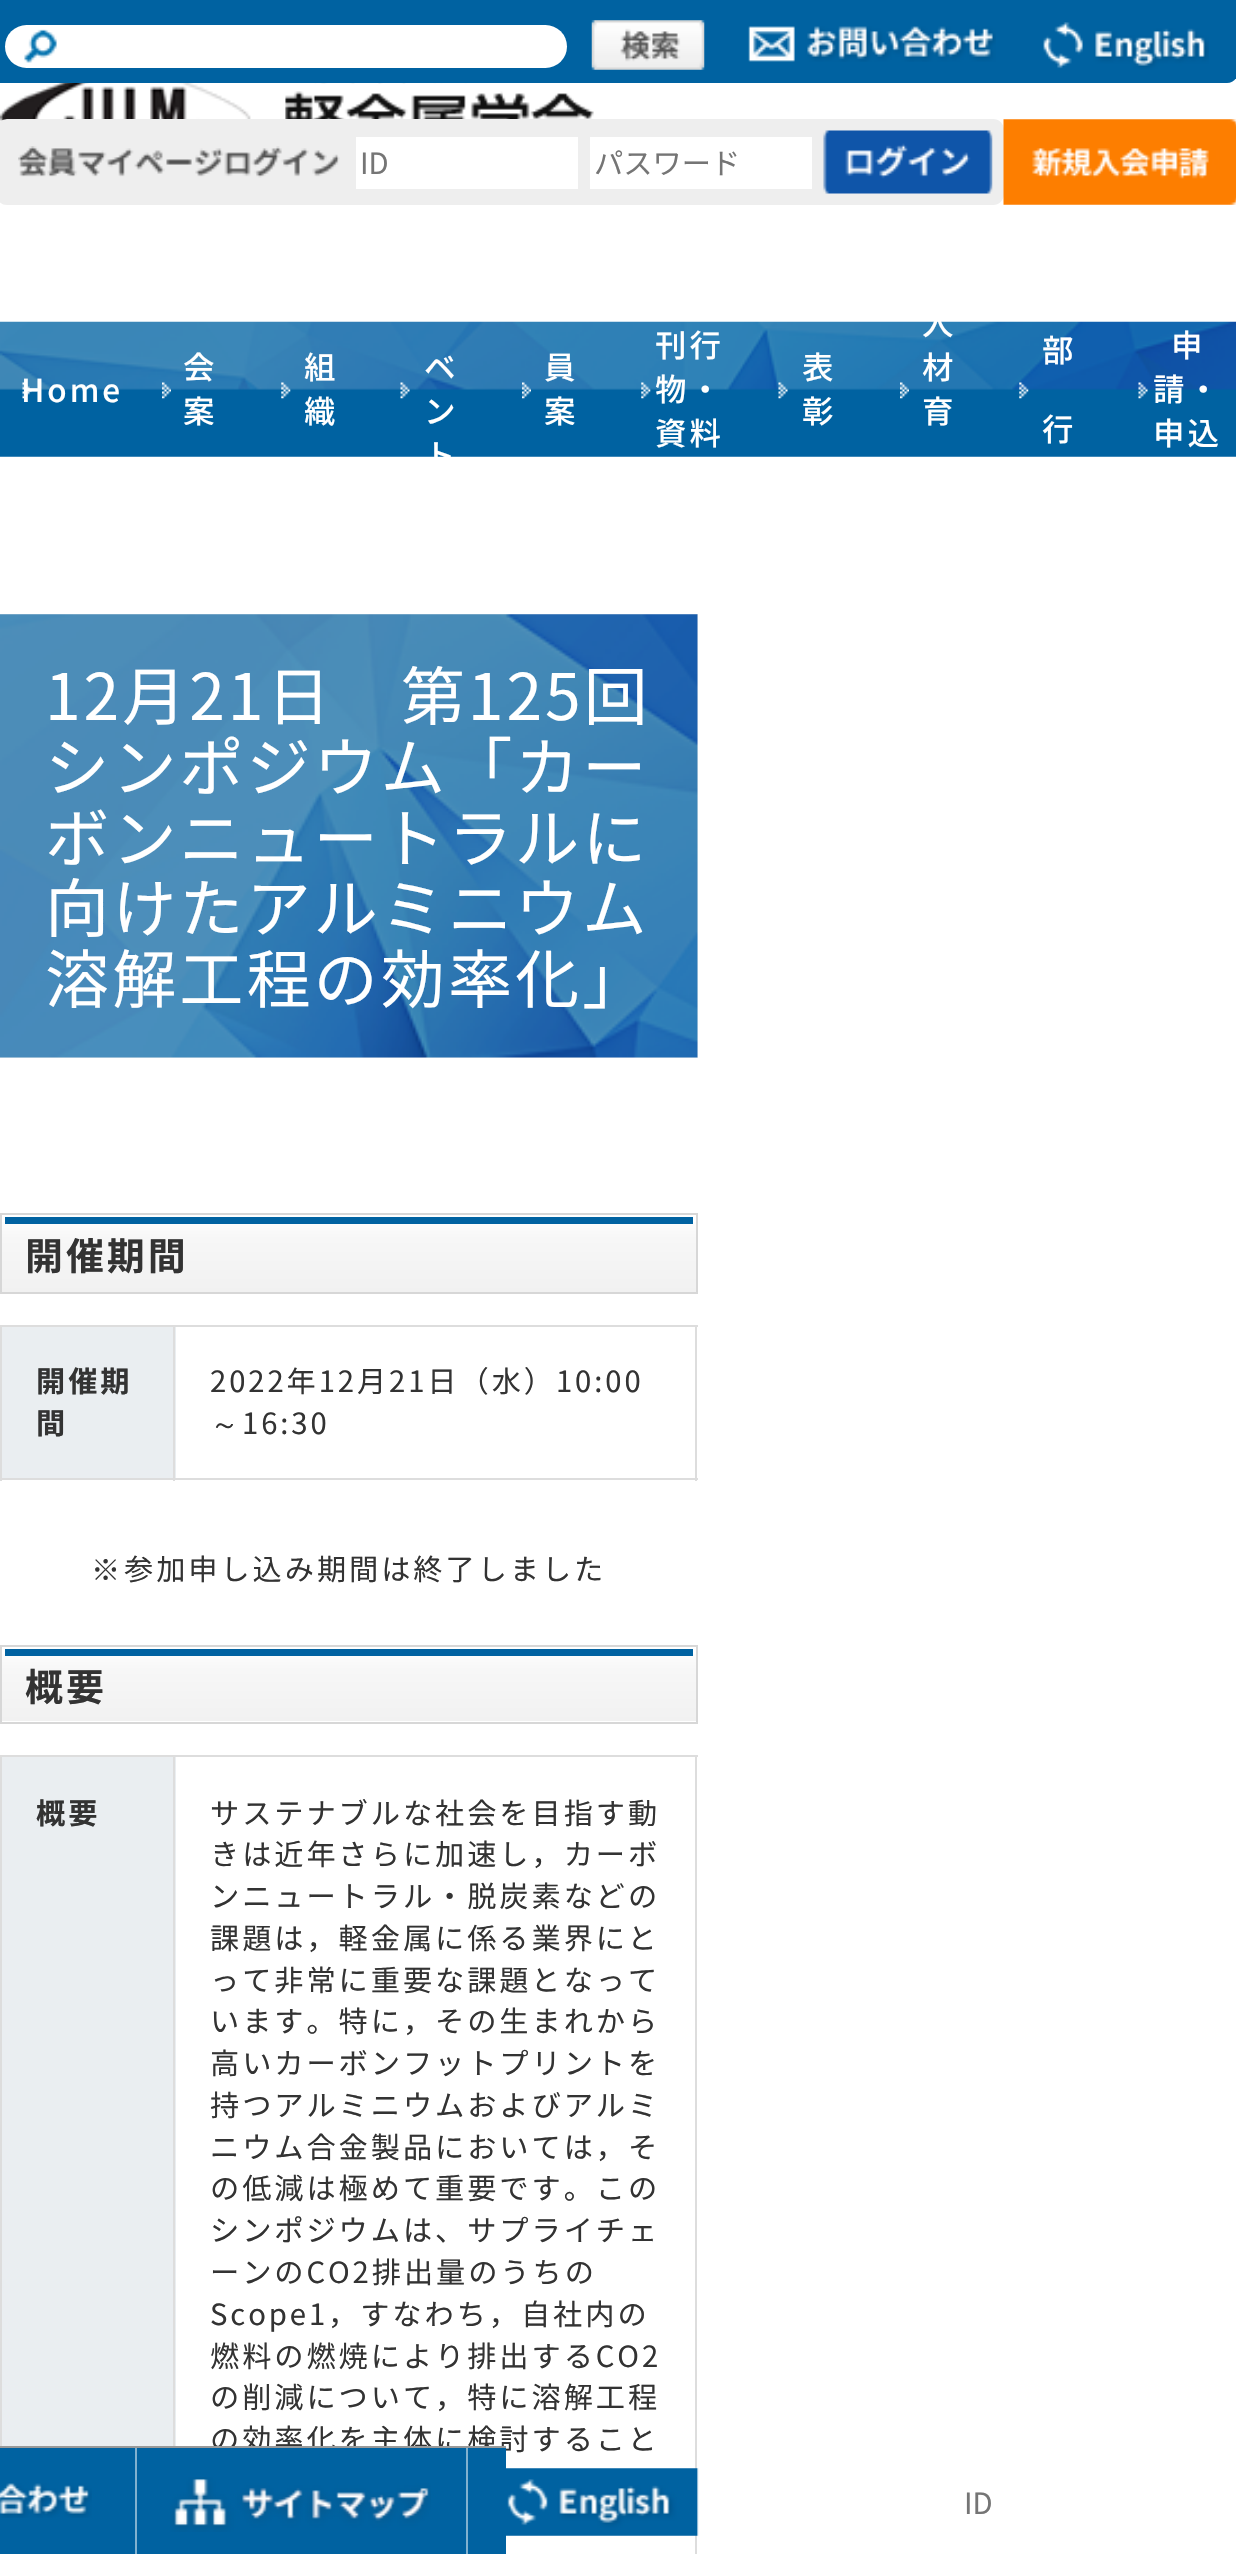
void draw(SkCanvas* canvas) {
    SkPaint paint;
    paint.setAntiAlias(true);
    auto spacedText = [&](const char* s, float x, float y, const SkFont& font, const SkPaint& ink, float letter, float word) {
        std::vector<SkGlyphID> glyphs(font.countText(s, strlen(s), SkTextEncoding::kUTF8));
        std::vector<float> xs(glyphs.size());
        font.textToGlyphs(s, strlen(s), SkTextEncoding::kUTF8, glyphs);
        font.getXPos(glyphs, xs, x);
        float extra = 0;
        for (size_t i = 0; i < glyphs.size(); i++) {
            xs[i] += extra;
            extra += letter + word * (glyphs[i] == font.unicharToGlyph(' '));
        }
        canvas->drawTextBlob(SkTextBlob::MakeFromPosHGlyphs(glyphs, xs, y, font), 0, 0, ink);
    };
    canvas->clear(0xFFFFFFFF);
    paint.setColor(0xFF0062A1);
    canvas->drawRect(SkRect::MakeXYWH(0, 0, 1236, 7), paint);
    canvas->drawPath(SkPathBuilder().moveTo(0, 7).lineTo(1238, 7).lineTo(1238, 72).cubicTo(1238, 78, 1233, 83, 1227, 83).lineTo(0, 83).close().detach(), paint);
    paint.setColor(0xFFFFFFFF);
    canvas->drawRoundRect(SkRect::MakeXYWH(5, 25, 562, 43), 21.5f, 21.5f, paint);
    canvas->drawImageRect(SkImages::DeferredFromEncodedData(SkData::MakeFromFileName("img1.png")), SkRect::MakeXYWH(24, 29, 33, 34), SkSamplingOptions());
    canvas->drawImageRect(SkImages::DeferredFromEncodedData(SkData::MakeFromFileName("img2.png")), SkRect::MakeXYWH(591, 20, 114, 50), SkSamplingOptions());
    canvas->drawImageRect(SkImages::DeferredFromEncodedData(SkData::MakeFromFileName("img3.png")), SkRect::MakeXYWH(748, 26, 248, 36), SkSamplingOptions());
    canvas->drawImageRect(SkImages::DeferredFromEncodedData(SkData::MakeFromFileName("img4.png")), SkRect::MakeXYWH(1043, 22, 166, 48), SkSamplingOptions());
    canvas->drawImageRect(SkImages::DeferredFromEncodedData(SkData::MakeFromFileName("img5.png")), SkRect::MakeXYWH(0, 83, 594, 38), SkSamplingOptions());
    paint.setColor(0xFFEEEEEE);
    canvas->drawRoundRect(SkRect::MakeXYWH(-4, 119, 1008, 86), 11, 11, paint);
    canvas->drawImageRect(SkImages::DeferredFromEncodedData(SkData::MakeFromFileName("img6.png")), SkRect::MakeXYWH(18, 146, 322, 32), SkSamplingOptions());
    paint.setColor(0xFFFFFFFF);
    canvas->drawRect(SkRect::MakeXYWH(356, 137, 222, 52), paint);
    SkFont font1(fontMgr->matchFamilyStyle("Noto Sans JP", SkFontStyle::Normal()), 29.25f);
    font1.setSubpixel(true);
    paint.setColor(0xFF757575);
    canvas->drawString("ID", 360, 174, font1, paint);
    paint.setColor(0xFFFFFFFF);
    canvas->drawRect(SkRect::MakeXYWH(590, 137, 222, 52), paint);
    paint.setColor(0xFF757575);
    canvas->drawString("パスワード", 594, 174, font1, paint);
    canvas->drawImageRect(SkImages::DeferredFromEncodedData(SkData::MakeFromFileName("img7.png")), SkRect::MakeXYWH(823, 130, 170, 64), SkSamplingOptions());
    canvas->drawImageRect(SkImages::DeferredFromEncodedData(SkData::MakeFromFileName("img8.png")), SkRect::MakeXYWH(1003, 119, 233, 86), SkSamplingOptions());
    canvas->drawImageRect(SkImages::DeferredFromEncodedData(SkData::MakeFromFileName("img9.png")), SkRect::MakeXYWH(0, 321, 1236, 136), SkSamplingOptions());
    canvas->drawImageRect(SkImages::DeferredFromEncodedData(SkData::MakeFromFileName("img10.png")), SkRect::MakeXYWH(22, 382, 10, 17), SkSamplingOptions());
    SkFont font2(fontMgr->matchFamilyStyle("Noto Sans JP", SkFontStyle(500, SkFontStyle::kNormal_Width, SkFontStyle::kUpright_Slant)), 31.5f);
    font2.setSubpixel(true);
    paint.setColor(0xFFFFFFFF);
    spacedText("Home", 21, 402, font2, paint, 3, 0);
    canvas->drawImageRect(SkImages::DeferredFromEncodedData(SkData::MakeFromFileName("img11.png")), SkRect::MakeXYWH(162, 382, 9, 17), SkSamplingOptions());
    spacedText("会", 183, 379, font2, paint, 3, 0);
    spacedText("案", 183, 423, font2, paint, 3, 0);
    canvas->drawImageRect(SkImages::DeferredFromEncodedData(SkData::MakeFromFileName("img12.png")), SkRect::MakeXYWH(281, 382, 10, 17), SkSamplingOptions());
    spacedText("組", 304, 379, font2, paint, 3, 0);
    spacedText("織", 304, 423, font2, paint, 3, 0);
    canvas->drawImageRect(SkImages::DeferredFromEncodedData(SkData::MakeFromFileName("img13.png")), SkRect::MakeXYWH(400, 382, 10, 17), SkSamplingOptions());
    spacedText("ベ", 424, 379, font2, paint, 3, 0);
    spacedText("ン", 424, 423, font2, paint, 3, 0);
    spacedText("ト", 424, 467, font2, paint, 3, 0);
    canvas->drawImageRect(SkImages::DeferredFromEncodedData(SkData::MakeFromFileName("img14.png")), SkRect::MakeXYWH(522, 382, 9, 17), SkSamplingOptions());
    spacedText("員", 544, 379, font2, paint, 3, 0);
    spacedText("案", 544, 423, font2, paint, 3, 0);
    canvas->drawImageRect(SkImages::DeferredFromEncodedData(SkData::MakeFromFileName("img15.png")), SkRect::MakeXYWH(641, 382, 10, 17), SkSamplingOptions());
    spacedText("刊行", 655, 357, font2, paint, 3, 0);
    spacedText("物・", 655, 401, font2, paint, 3, 0);
    spacedText("資料", 655, 445, font2, paint, 3, 0);
    canvas->drawImageRect(SkImages::DeferredFromEncodedData(SkData::MakeFromFileName("img16.png")), SkRect::MakeXYWH(778, 382, 10, 17), SkSamplingOptions());
    spacedText("表", 802, 379, font2, paint, 3, 0);
    spacedText("彰", 802, 423, font2, paint, 3, 0);
    canvas->drawImageRect(SkImages::DeferredFromEncodedData(SkData::MakeFromFileName("img17.png")), SkRect::MakeXYWH(900, 382, 9, 17), SkSamplingOptions());
    spacedText("人", 922, 335, font2, paint, 3, 0);
    spacedText("材", 922, 379, font2, paint, 3, 0);
    spacedText("育", 922, 423, font2, paint, 3, 0);
    canvas->drawImageRect(SkImages::DeferredFromEncodedData(SkData::MakeFromFileName("img18.png")), SkRect::MakeXYWH(1019, 382, 10, 17), SkSamplingOptions());
    spacedText("部", 1042, 362, font2, paint, 3, 0);
    spacedText("行", 1042, 441, font2, paint, 3, 0);
    canvas->drawImageRect(SkImages::DeferredFromEncodedData(SkData::MakeFromFileName("img19.png")), SkRect::MakeXYWH(1138, 382, 10, 17), SkSamplingOptions());
    spacedText("申", 1171, 357, font2, paint, 3, 0);
    spacedText("請・", 1153, 401, font2, paint, 3, 0);
    spacedText("申込", 1153, 445, font2, paint, 3, 0);
    paint.setColor(0xFFEEEEEE);
    canvas->drawRect(SkRect::MakeXYWH(0, 614, 698, 444), paint);
    canvas->drawImageRect(SkImages::DeferredFromEncodedData(SkData::MakeFromFileName("img20.png")), SkRect::MakeXYWH(0, 614, 698, 444), SkSamplingOptions());
    SkFont font3(fontMgr->matchFamilyStyle("Noto Sans JP", SkFontStyle::Normal()), 64.25f);
    font3.setSubpixel(true);
    paint.setColor(0xFFFFFFFF);
    spacedText("12月21日　第125回", 45, 720, font3, paint, 2.9f, 0);
    spacedText("シンポジウム「カー", 45, 791, font3, paint, 2.9f, 0);
    spacedText("ボンニュートラルに", 45, 862, font3, paint, 2.9f, 0);
    spacedText("向けたアルミニウム", 45, 932, font3, paint, 2.9f, 0);
    spacedText("溶解工程の効率化」", 45, 1003, font3, paint, 2.9f, 0);
    {
        const SkColor colors[] = {0xFFFFFFFF, 0xFFF7F7F7, 0xFFF1F1F1};
        const float stops[] = {0, 0.3f, 1};
        const SkPoint ends[] = {{349, 1215}, {349, 1292}};
        paint.setShader(SkGradientShader::MakeLinear(ends, colors, stops, 3, SkTileMode::kClamp));
        paint.setAlpha(255);
    }
    canvas->drawRect(SkRect::MakeXYWH(2, 1222, 694, 70), paint);
    paint.setStyle(SkPaint::kStroke_Style);
    paint.setStrokeWidth(2);
    paint.setShader(nullptr);
    paint.setColor(0xFFD7D7D7);
    canvas->drawRect(SkRect::MakeXYWH(1, 1214, 696, 79), paint);
    paint.setStyle(SkPaint::kFill_Style);
    paint.setColor(0xFF0062A1);
    canvas->drawRect(SkRect::MakeXYWH(5, 1217, 688, 7), paint);
    SkFont font4(fontMgr->matchFamilyStyle("Noto Sans JP", SkFontStyle::Bold()), 38);
    font4.setSubpixel(true);
    paint.setColor(0xFF333333);
    spacedText("開催期間", 25, 1270, font4, paint, 2.9f, 0);
    paint.setColor(0xFFDDDDDD);
    canvas->drawRect(SkRect::MakeXYWH(0, 1325, 698, 2), paint);
    canvas->drawRect(SkRect::MakeXYWH(695, 1325, 2, 156), paint);
    canvas->drawRect(SkRect::MakeXYWH(0, 1478, 698, 2), paint);
    canvas->drawRect(SkRect::MakeXYWH(0, 1325, 2, 156), paint);
    paint.setColor(0xFFEAEEF1);
    canvas->drawRect(SkRect::MakeXYWH(2, 1327, 174, 151), paint);
    SkFont font5(fontMgr->matchFamilyStyle("Noto Sans JP", SkFontStyle::Bold()), 29.25f);
    font5.setSubpixel(true);
    paint.setColor(0xFF333333);
    spacedText("開催期", 36, 1392, font5, paint, 2.9f, 0);
    spacedText("間", 36, 1434, font5, paint, 2.9f, 0);
    paint.setColor(0xFFDDDDDD);
    canvas->drawRect(SkRect::MakeXYWH(173, 1325, 2, 156), paint);
    paint.setColor(0xFF333333);
    spacedText("2022年12月21日（水）10:00", 210, 1392, font1, paint, 2.9f, 0);
    SkFont font6(fontMgr->matchFamilyStyle("WenQuanYi Zen Hei", SkFontStyle(500, SkFontStyle::kNormal_Width, SkFontStyle::kUpright_Slant)), 29.25f);
    font6.setSubpixel(true);
    spacedText("～", 210, 1434, font6, paint, 2.9f, 0);
    spacedText("16:30", 242, 1434, font1, paint, 2.9f, 0);
    spacedText("※", 91, 1580, font6, paint, 2.9f, 0);
    spacedText("参加申し込み期間は終了しました", 124, 1580, font1, paint, 2.9f, 0);
    {
        const SkColor colors[] = {0xFFFFFFFF, 0xFFF7F7F7, 0xFFF1F1F1};
        const float stops[] = {0, 0.3f, 1};
        const SkPoint ends[] = {{349, 1647}, {349, 1721}};
        paint.setShader(SkGradientShader::MakeLinear(ends, colors, stops, 3, SkTileMode::kClamp));
        paint.setAlpha(255);
    }
    canvas->drawRect(SkRect::MakeXYWH(2, 1654, 694, 67), paint);
    paint.setStyle(SkPaint::kStroke_Style);
    paint.setShader(nullptr);
    paint.setColor(0xFFD7D7D7);
    canvas->drawRect(SkRect::MakeXYWH(1, 1646, 696, 77), paint);
    paint.setStyle(SkPaint::kFill_Style);
    paint.setColor(0xFF0062A1);
    canvas->drawRect(SkRect::MakeXYWH(5, 1649, 688, 7), paint);
    paint.setColor(0xFF333333);
    spacedText("概要", 25, 1701, font4, paint, 2.9f, 0);
    paint.setColor(0xFFDDDDDD);
    canvas->drawRect(SkRect::MakeXYWH(0, 1755, 698, 2), paint);
    canvas->drawRect(SkRect::MakeXYWH(695, 1755, 2, 799), paint);
    canvas->drawRect(SkRect::MakeXYWH(0, 1755, 2, 691), paint);
    paint.setColor(0xFFEAEEF1);
    canvas->drawRect(SkRect::MakeXYWH(2, 1757, 174, 689), paint);
    paint.setColor(0xFF333333);
    spacedText("概要", 36, 1824, font5, paint, 2.9f, 0);
    paint.setColor(0xFFDDDDDD);
    canvas->drawRect(SkRect::MakeXYWH(173, 1755, 2, 691), paint);
    paint.setColor(0xFF333333);
    spacedText("サステナブルな社会を目指す動", 210, 1824, font1, paint, 2.9f, 0);
    spacedText("きは近年さらに加速し，カーボ", 210, 1865, font1, paint, 2.9f, 0);
    spacedText("ンニュートラル・脱炭素などの", 210, 1907, font1, paint, 2.9f, 0);
    spacedText("課題は，軽金属に係る業界にと", 210, 1949, font1, paint, 2.9f, 0);
    spacedText("って非常に重要な課題となって", 210, 1991, font1, paint, 2.9f, 0);
    spacedText("います。特に，その生まれから", 210, 2032, font1, paint, 2.9f, 0);
    spacedText("高いカーボンフットプリントを", 210, 2074, font1, paint, 2.9f, 0);
    spacedText("持つアルミニウムおよびアルミ", 210, 2116, font1, paint, 2.9f, 0);
    spacedText("ニウム合金製品においては，そ", 210, 2158, font1, paint, 2.9f, 0);
    spacedText("の低減は極めて重要です。この", 210, 2199, font1, paint, 2.9f, 0);
    spacedText("シンポジウムは、サプライチェ", 210, 2241, font1, paint, 2.9f, 0);
    spacedText("ーンのCO2排出量のうちの", 210, 2283, font1, paint, 2.9f, 0);
    spacedText("Scope1，すなわち，自社内の", 210, 2325, font1, paint, 2.9f, 0);
    spacedText("燃料の燃焼により排出するCO2", 210, 2367, font1, paint, 2.9f, 0);
    spacedText("の削減について，特に溶解工程", 210, 2408, font1, paint, 2.9f, 0);
    spacedText("の効率化を主体に検討すること", 210, 2450, font1, paint, 2.9f, 0);
    paint.setColor(0xFF0062A1);
    canvas->drawRect(SkRect::MakeXYWH(0, 2448, 506, 106), paint);
    paint.setColor(0xFF999999);
    canvas->drawRect(SkRect::MakeXYWH(0, 2446, 506, 2), paint);
    paint.setColor(0xFF80B1D0);
    canvas->drawRect(SkRect::MakeXYWH(135, 2448, 2, 106), paint);
    canvas->drawImageRect(SkImages::DeferredFromEncodedData(SkData::MakeFromFileName("img21.png")), SkRect::MakeXYWH(0, 2483, 92, 35), SkSamplingOptions());
    canvas->drawRect(SkRect::MakeXYWH(466, 2448, 2, 106), paint);
    canvas->drawImageRect(SkImages::DeferredFromEncodedData(SkData::MakeFromFileName("img22.png")), SkRect::MakeXYWH(170, 2477, 261, 55), SkSamplingOptions());
    canvas->drawImageRect(SkImages::DeferredFromEncodedData(SkData::MakeFromFileName("img23.png")), SkRect::MakeXYWH(506, 2468, 193, 68), SkSamplingOptions());
    paint.setColor(0xFF757575);
    canvas->drawString("ID", 964, 2514, font1, paint);
}
